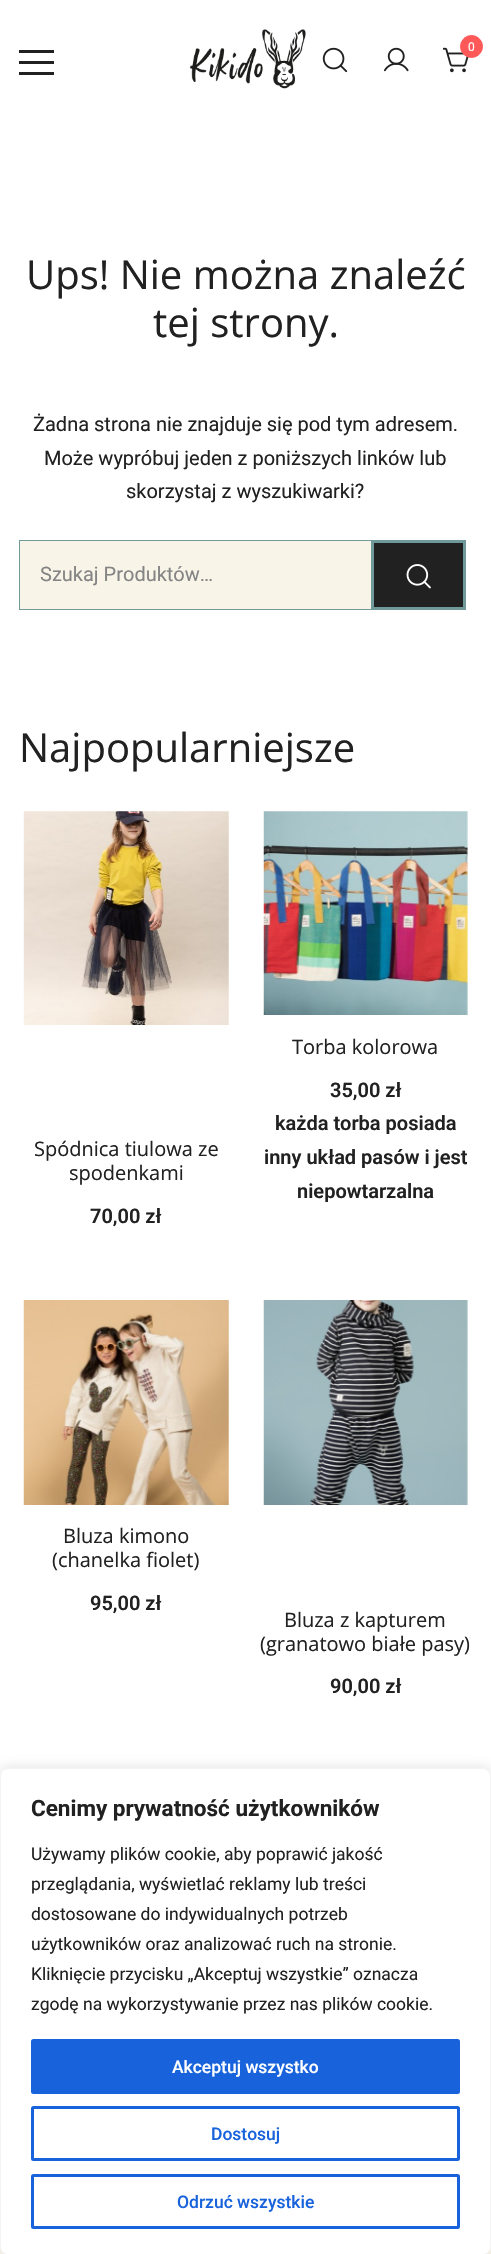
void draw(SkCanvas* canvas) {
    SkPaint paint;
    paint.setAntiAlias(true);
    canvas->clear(0xFFFFFFFF);
    canvas->drawImageRect(SkImages::DeferredFromEncodedData(SkData::MakeFromFileName("img1.png")), SkRect::MakeXYWH(189, 29, 117, 60), SkSamplingOptions());
    canvas->drawImageRect(SkImages::DeferredFromEncodedData(SkData::MakeFromFileName("img2.png")), SkRect::MakeXYWH(322, 47, 26, 26), SkSamplingOptions());
    canvas->drawImageRect(SkImages::DeferredFromEncodedData(SkData::MakeFromFileName("img3.png")), SkRect::MakeXYWH(384, 47, 25, 25), SkSamplingOptions());
    canvas->drawImageRect(SkImages::DeferredFromEncodedData(SkData::MakeFromFileName("img4.png")), SkRect::MakeXYWH(443, 47, 26, 26), SkSamplingOptions());
    paint.setColor(0xFFFF5858);
    canvas->drawCircle(471.5f, 46.5f, 11, paint);
    paint.setStyle(SkPaint::kStroke_Style);
    paint.setStrokeWidth(1);
    canvas->drawCircle(471.5f, 46.5f, 11, paint);
    SkFont font1(fontMgr->matchFamilyStyle("Roboto", SkFontStyle::Normal()), 12);
    font1.setSubpixel(true);
    paint.setStyle(SkPaint::kFill_Style);
    paint.setColor(0xFFFFFFFF);
    canvas->drawString("0", 468, 51, font1, paint);
    paint.setColor(0xFF212121);
    canvas->drawRect(SkRect::MakeXYWH(19, 50, 35, 3), paint);
    canvas->drawRect(SkRect::MakeXYWH(19, 61, 35, 3), paint);
    canvas->drawRect(SkRect::MakeXYWH(19, 72, 35, 3), paint);
    SkFont font2(fontMgr->matchFamilyStyle("Open Sans", SkFontStyle::Normal()), 40);
    font2.setSubpixel(true);
    canvas->drawString("Ups! Nie można znaleźć", 26, 289, font2, paint);
    canvas->drawString("tej strony.", 153, 337, font2, paint);
    SkFont font3(fontMgr->matchFamilyStyle("Roboto", SkFontStyle::Normal()), 20);
    font3.setSubpixel(true);
    canvas->drawString("Żadna strona nie znajduje się pod tym adresem.", 33, 431, font3, paint);
    canvas->drawString("Może wypróbuj jeden z poniższych linków lub", 44, 465, font3, paint);
    canvas->drawString("skorzystaj z wyszukiwarki?", 126, 498, font3, paint);
    paint.setColor(0xFFF9F4E8);
    canvas->drawRect(SkRect::MakeXYWH(20, 541, 351, 68), paint);
    paint.setStyle(SkPaint::kStroke_Style);
    paint.setColor(0xFF709A99);
    canvas->drawRect(SkRect::MakeXYWH(19.5f, 540.5f, 358, 69), paint);
    paint.setStyle(SkPaint::kFill_Style);
    paint.setColor(0xFF848484);
    canvas->drawString("Szukaj Produktów…", 40, 581, font3, paint);
    paint.setColor(0xFF212121);
    canvas->drawRect(SkRect::MakeXYWH(372.5f, 541.5f, 92, 67), paint);
    paint.setStyle(SkPaint::kStroke_Style);
    paint.setStrokeWidth(3);
    paint.setColor(0xFF709A99);
    canvas->drawRect(SkRect::MakeXYWH(372.5f, 541.5f, 92, 67), paint);
    canvas->drawImageRect(SkImages::DeferredFromEncodedData(SkData::MakeFromFileName("img5.png")), SkRect::MakeXYWH(406, 564, 25, 25), SkSamplingOptions());
    paint.setStyle(SkPaint::kFill_Style);
    paint.setColor(0xFF212121);
    canvas->drawString("Najpopularniejsze", 19, 762, font2, paint);
    canvas->drawImageRect(SkImages::DeferredFromEncodedData(SkData::MakeFromFileName("img6.png")), SkRect::MakeXYWH(23, 811, 206, 214), SkSamplingOptions());
    SkFont font4(fontMgr->matchFamilyStyle("Open Sans", SkFontStyle::Normal()), 20);
    font4.setSubpixel(true);
    canvas->drawString("Spódnica tiulowa ze", 34, 1156, font4, paint);
    canvas->drawString("spodenkami", 69, 1180, font4, paint);
    SkFont font5(fontMgr->matchFamilyStyle("Roboto", SkFontStyle(600, SkFontStyle::kNormal_Width, SkFontStyle::kUpright_Slant)), 20);
    font5.setSubpixel(true);
    canvas->drawString("70,00 zł", 90, 1223, font5, paint);
    canvas->drawImageRect(SkImages::DeferredFromEncodedData(SkData::MakeFromFileName("img7.png")), SkRect::MakeXYWH(263, 811, 205, 204), SkSamplingOptions());
    canvas->drawString("Torba kolorowa", 292, 1054, font4, paint);
    canvas->drawString("35,00 zł", 330, 1097, font5, paint);
    canvas->drawString("każda torba posiada", 275, 1130, font5, paint);
    canvas->drawString("inny układ pasów i jest", 264, 1164, font5, paint);
    canvas->drawString("niepowtarzalna", 297, 1198, font5, paint);
    canvas->drawImageRect(SkImages::DeferredFromEncodedData(SkData::MakeFromFileName("img8.png")), SkRect::MakeXYWH(23, 1300, 206, 205), SkSamplingOptions());
    canvas->drawString("Bluza kimono", 63, 1543, font4, paint);
    canvas->drawString("(chanelka fiolet)", 52, 1567, font4, paint);
    canvas->drawString("95,00 zł", 90, 1610, font5, paint);
    canvas->drawImageRect(SkImages::DeferredFromEncodedData(SkData::MakeFromFileName("img9.png")), SkRect::MakeXYWH(263, 1300, 205, 205), SkSamplingOptions());
    canvas->drawString("Bluza z kapturem", 284, 1627, font4, paint);
    canvas->drawString("(granatowo białe pasy)", 260, 1651, font4, paint);
    canvas->drawString("90,00 zł", 330, 1693, font5, paint);
    paint.setColor(0xFFF9F4E8);
    canvas->drawRect(SkRect::MakeXYWH(0, 2247, 491, 7), paint);
    paint.setColor(0x4DACABAB);
    paint.setMaskFilter(SkMaskFilter::MakeBlur(kNormal_SkBlurStyle, 6));
    canvas->drawRoundRect(SkRect::MakeXYWH(0, 1766, 491, 488), 8, 8, paint);
    paint.setMaskFilter(nullptr);
    paint.setColor(0xFFFFFFFF);
    canvas->drawRoundRect(SkRect::MakeXYWH(0.5f, 1768.5f, 490, 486), 7.5f, 7.5f, paint);
    paint.setStyle(SkPaint::kStroke_Style);
    paint.setStrokeWidth(1);
    paint.setColor(0xFFF4F4F4);
    canvas->drawRoundRect(SkRect::MakeXYWH(0.5f, 1768.5f, 490, 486), 7.5f, 7.5f, paint);
    SkFont font6(fontMgr->matchFamilyStyle("Roboto", SkFontStyle::Bold()), 22.5f);
    font6.setSubpixel(true);
    paint.setStyle(SkPaint::kFill_Style);
    paint.setColor(0xFF212121);
    canvas->drawString("Cenimy prywatność użytkowników", 31, 1816, font6, paint);
    SkFont font7(fontMgr->matchFamilyStyle("Roboto", SkFontStyle::Normal()), 17.5f);
    font7.setSubpixel(true);
    canvas->drawString("Używamy plików cookie, aby poprawić jakość", 31, 1860, font7, paint);
    canvas->drawString("przeglądania, wyświetlać reklamy lub treści", 31, 1890, font7, paint);
    canvas->drawString("dostosowane do indywidualnych potrzeb", 31, 1920, font7, paint);
    canvas->drawString("użytkowników oraz analizować ruch na stronie.", 31, 1950, font7, paint);
    canvas->drawString("Kliknięcie przycisku „Akceptuj wszystkie” oznacza", 31, 1980, font7, paint);
    canvas->drawString("zgodę na wykorzystywanie przez nas plików cookie.", 31, 2010, font7, paint);
    paint.setColor(0xFF1863DC);
    canvas->drawRoundRect(SkRect::MakeXYWH(32.5f, 2040.5f, 426, 52), 1, 1, paint);
    paint.setStyle(SkPaint::kStroke_Style);
    paint.setStrokeWidth(3);
    canvas->drawRoundRect(SkRect::MakeXYWH(32.5f, 2040.5f, 426, 52), 1, 1, paint);
    SkFont font8(fontMgr->matchFamilyStyle("Roboto", SkFontStyle(500, SkFontStyle::kNormal_Width, SkFontStyle::kUpright_Slant)), 17.5f);
    font8.setSubpixel(true);
    paint.setStyle(SkPaint::kFill_Style);
    paint.setColor(0xFFFFFFFF);
    canvas->drawString("Akceptuj wszystko", 172, 2073, font8, paint);
    paint.setStyle(SkPaint::kStroke_Style);
    paint.setColor(0xFF1863DC);
    canvas->drawRoundRect(SkRect::MakeXYWH(32.5f, 2107.5f, 426, 52), 1, 1, paint);
    paint.setStyle(SkPaint::kFill_Style);
    canvas->drawString("Dostosuj", 211, 2140, font8, paint);
    paint.setStyle(SkPaint::kStroke_Style);
    canvas->drawRoundRect(SkRect::MakeXYWH(32.5f, 2175.5f, 426, 52), 1, 1, paint);
    paint.setStyle(SkPaint::kFill_Style);
    canvas->drawString("Odrzuć wszystkie", 177, 2208, font8, paint);
}
